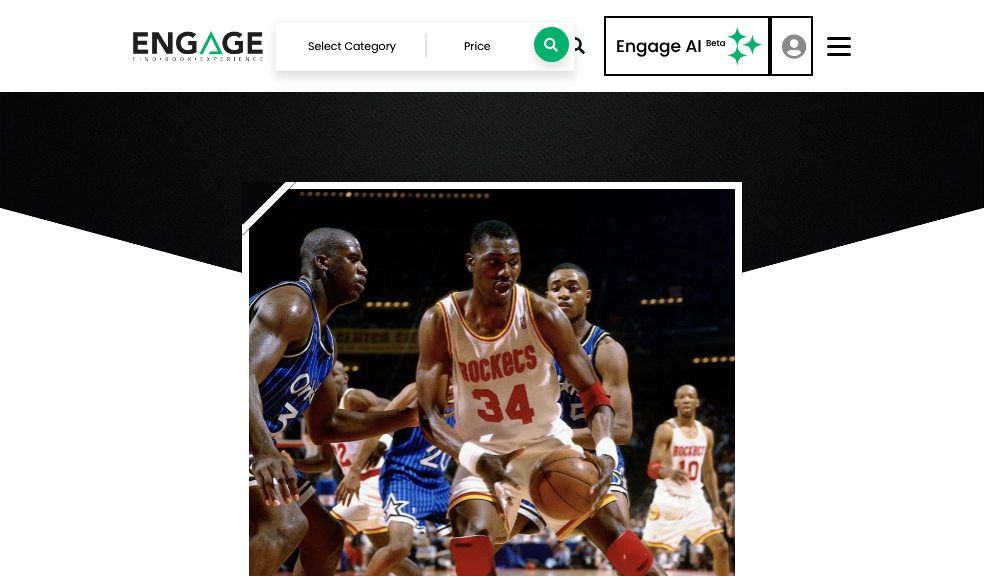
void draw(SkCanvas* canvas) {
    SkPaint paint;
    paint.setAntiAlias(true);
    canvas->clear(0xFFFFFFFF);
    canvas->drawImageRect(SkImages::DeferredFromEncodedData(SkData::MakeFromFileName("img1.png")), SkRect::MakeXYWH(133, 31, 130, 30), SkSamplingOptions());
    canvas->drawImageRect(SkImages::DeferredFromEncodedData(SkData::MakeFromFileName("img3.png")), SkRect::MakeXYWH(575, 37, 10, 18), SkSamplingOptions());
    canvas->drawImageRect(SkImages::DeferredFromEncodedData(SkData::MakeFromFileName("img6.png")), SkRect::MakeXYWH(0, 92, 984, 181), SkSamplingOptions());
    paint.setColor(0x2E616161);
    paint.setMaskFilter(SkMaskFilter::MakeBlur(kNormal_SkBlurStyle, 4.5f));
    canvas->drawRect(SkRect::MakeXYWH(275, 28, 300, 50), paint);
    paint.setMaskFilter(nullptr);
    paint.setColor(0xFFFFFFFF);
    canvas->drawRect(SkRect::MakeXYWH(275.5f, 21.5f, 299, 49), paint);
    paint.setStyle(SkPaint::kStroke_Style);
    paint.setStrokeWidth(1);
    paint.setColor(0xFFF4F4F4);
    canvas->drawRect(SkRect::MakeXYWH(275.5f, 21.5f, 299, 49), paint);
    SkFont font1(fontMgr->matchFamilyStyle("Poppins", SkFontStyle::Normal()), 11);
    font1.setSubpixel(true);
    paint.setStyle(SkPaint::kFill_Style);
    paint.setColor(0xFF000000);
    canvas->drawString("Select Category", 308, 50, font1, paint);
    paint.setColor(0xFFE4E4E4);
    canvas->drawRect(SkRect::MakeXYWH(425, 33, 2, 25), paint);
    paint.setColor(0xFF000000);
    canvas->drawString("Price", 464, 50, font1, paint);
    canvas->save();
    canvas->clipRect(SkRect::MakeXYWH(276, 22, 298, 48));
    paint.setColor(0x2E616161);
    paint.setMaskFilter(SkMaskFilter::MakeBlur(kNormal_SkBlurStyle, 4.5f));
    canvas->drawRoundRect(SkRect::MakeXYWH(534, 34, 35, 35), 17.5f, 17.5f, paint);
    paint.setMaskFilter(nullptr);
    canvas->restore();
    paint.setColor(0xFF00B26B);
    canvas->drawCircle(551.5f, 44.5f, 17.5f, paint);
    canvas->drawImageRect(SkImages::DeferredFromEncodedData(SkData::MakeFromFileName("img2.png")), SkRect::MakeXYWH(544, 37, 14, 15), SkSamplingOptions());
    paint.setStyle(SkPaint::kStroke_Style);
    paint.setStrokeWidth(2);
    paint.setColor(0xFF000000);
    canvas->drawRect(SkRect::MakeXYWH(605, 17, 164, 58), paint);
    SkFont font2(fontMgr->matchFamilyStyle("Poppins", SkFontStyle(500, SkFontStyle::kNormal_Width, SkFontStyle::kUpright_Slant)), 17);
    font2.setSubpixel(true);
    paint.setStyle(SkPaint::kFill_Style);
    canvas->drawString("Engage AI", 616, 52, font2, paint);
    SkFont font3(fontMgr->matchFamilyStyle("Poppins", SkFontStyle(500, SkFontStyle::kNormal_Width, SkFontStyle::kUpright_Slant)), 8.5f);
    font3.setSubpixel(true);
    canvas->drawString("Beta", 706, 46, font3, paint);
    canvas->drawImageRect(SkImages::DeferredFromEncodedData(SkData::MakeFromFileName("img4.png")), SkRect::MakeXYWH(727, 26, 36, 40), SkSamplingOptions());
    paint.setStyle(SkPaint::kStroke_Style);
    canvas->drawRect(SkRect::MakeXYWH(771, 17, 41, 58), paint);
    canvas->drawImageRect(SkImages::DeferredFromEncodedData(SkData::MakeFromFileName("img5.png")), SkRect::MakeXYWH(782, 34, 25, 25), SkSamplingOptions());
    paint.setStyle(SkPaint::kFill_Style);
    canvas->drawRoundRect(SkRect::MakeXYWH(827, 37, 24, 3), 1.5f, 1.5f, paint);
    canvas->drawRoundRect(SkRect::MakeXYWH(827, 45, 24, 3), 1.5f, 1.5f, paint);
    canvas->drawRoundRect(SkRect::MakeXYWH(827, 53, 24, 3), 1.5f, 1.5f, paint);
    paint.setStyle(SkPaint::kStroke_Style);
    paint.setStrokeWidth(7);
    paint.setColor(0xFFFFFFFF);
    canvas->drawRect(SkRect::MakeXYWH(245.5f, 185.5f, 493, 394), paint);
    canvas->drawImageRect(SkImages::DeferredFromEncodedData(SkData::MakeFromFileName("img7.png")), SkRect::MakeXYWH(249, 189, 486, 387), SkSamplingOptions());
    canvas->save();
    canvas->clipRect(SkRect::MakeXYWH(242, 182, 500, 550));
    paint.setStyle(SkPaint::kFill_Style);
    paint.setColor(0xFF070709);
    canvas->drawPath(SkPathBuilder().moveTo(261, 145).lineTo(297, 181).lineTo(243, 235).lineTo(207, 199).close().detach(), paint);
    paint.setStyle(SkPaint::kStroke_Style);
    paint.setColor(0xFFFFFFFF);
    canvas->drawPath(SkPathBuilder().moveTo(261, 150.5f).lineTo(291.5f, 181).lineTo(243, 229.5f).lineTo(212.5f, 199).close().detach(), paint);
    canvas->restore();
}
